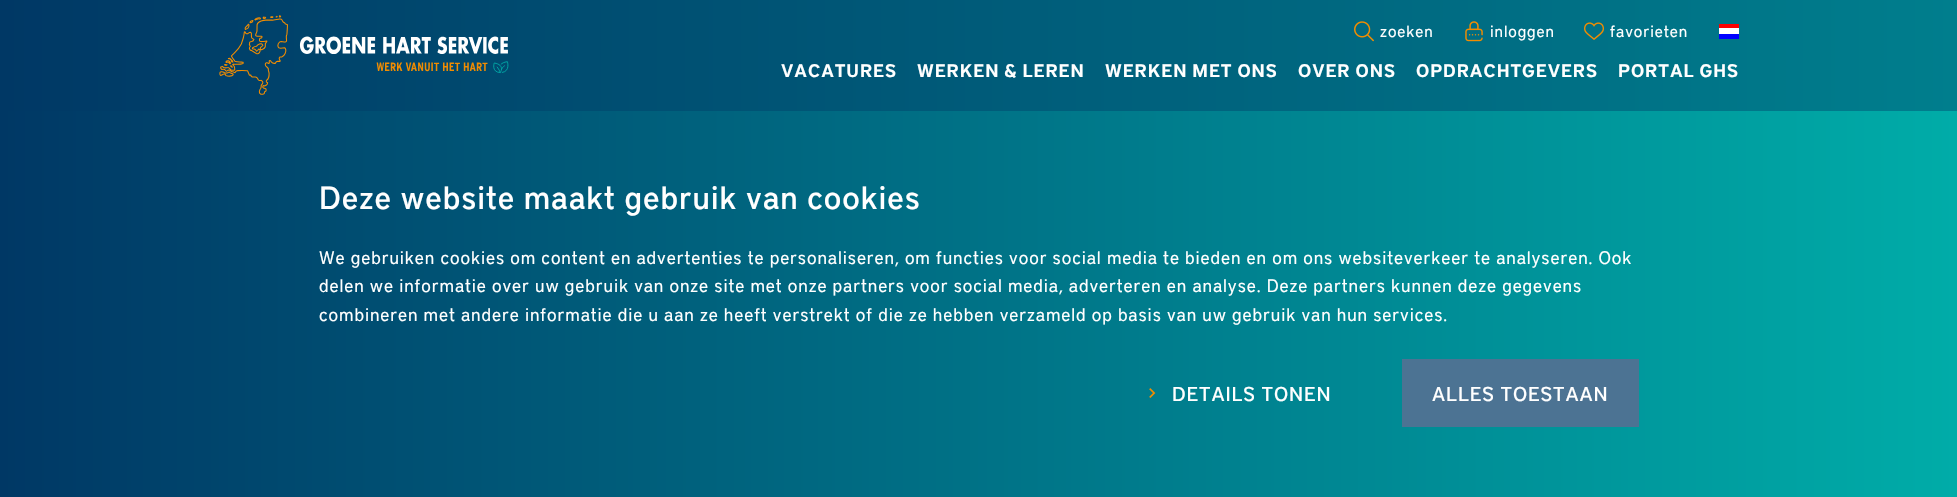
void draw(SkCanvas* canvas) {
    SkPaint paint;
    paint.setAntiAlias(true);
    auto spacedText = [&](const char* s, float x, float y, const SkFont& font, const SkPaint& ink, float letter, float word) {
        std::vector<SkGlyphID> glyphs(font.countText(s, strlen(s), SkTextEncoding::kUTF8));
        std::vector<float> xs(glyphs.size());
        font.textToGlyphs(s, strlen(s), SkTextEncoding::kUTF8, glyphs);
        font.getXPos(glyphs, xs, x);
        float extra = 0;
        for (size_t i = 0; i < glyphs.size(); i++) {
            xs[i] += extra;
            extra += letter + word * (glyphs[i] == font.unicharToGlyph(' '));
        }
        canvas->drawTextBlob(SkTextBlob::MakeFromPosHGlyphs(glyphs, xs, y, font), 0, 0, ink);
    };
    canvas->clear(0xFFFFFFFF);
    {
        const SkColor colors[] = {0xFF007E8D, 0xFF003865};
        const float stops[] = {0, 1};
        const SkPoint ends[] = {{1957, 55}, {0, 55}};
        paint.setShader(SkGradientShader::MakeLinear(ends, colors, stops, 2, SkTileMode::kClamp));
        paint.setAlpha(255);
    }
    canvas->drawRect(SkRect::MakeXYWH(0, 0, 1957, 110), paint);
    canvas->drawImageRect(SkImages::DeferredFromEncodedData(SkData::MakeFromFileName("img1.png")), SkRect::MakeXYWH(219, 15, 290, 80), SkSamplingOptions());
    canvas->drawImageRect(SkImages::DeferredFromEncodedData(SkData::MakeFromFileName("img2.png")), SkRect::MakeXYWH(1354, 21, 20, 21), SkSamplingOptions());
    SkFont font1(fontMgr->matchFamilyStyle("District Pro", SkFontStyle::Normal()), 16);
    font1.setSubpixel(true);
    paint.setShader(nullptr);
    paint.setColor(0xFFFFFFFF);
    spacedText("zoeken", 1380, 37, font1, paint, 0.9f, 0);
    canvas->drawImageRect(SkImages::DeferredFromEncodedData(SkData::MakeFromFileName("img3.png")), SkRect::MakeXYWH(1465, 21, 18, 21), SkSamplingOptions());
    spacedText("inloggen", 1490, 37, font1, paint, 0.9f, 0);
    canvas->drawImageRect(SkImages::DeferredFromEncodedData(SkData::MakeFromFileName("img4.png")), SkRect::MakeXYWH(1584, 22, 20, 18), SkSamplingOptions());
    spacedText("favorieten", 1610, 37, font1, paint, 0.9f, 0);
    canvas->drawRect(SkRect::MakeXYWH(1719, 28, 20, 6), paint);
    paint.setColor(0xFFFF0000);
    canvas->drawRect(SkRect::MakeXYWH(1719, 24, 20, 4), paint);
    paint.setColor(0xFF0000FF);
    canvas->drawRect(SkRect::MakeXYWH(1719, 34, 20, 5), paint);
    SkFont font2(fontMgr->matchFamilyStyle("District Pro", SkFontStyle(600, SkFontStyle::kNormal_Width, SkFontStyle::kUpright_Slant)), 18);
    font2.setSubpixel(true);
    paint.setColor(0xFFFFFFFF);
    spacedText("VACATURES", 781, 77, font2, paint, 0.9f, 0);
    spacedText("WERKEN & LEREN", 917, 77, font2, paint, 0.9f, 0);
    spacedText("WERKEN MET ONS", 1105, 77, font2, paint, 0.9f, 0);
    spacedText("OVER ONS", 1298, 77, font2, paint, 0.9f, 0);
    spacedText("OPDRACHTGEVERS", 1416, 77, font2, paint, 0.9f, 0);
    spacedText("PORTAL GHS", 1618, 77, font2, paint, 0.9f, 0);
    {
        const SkColor colors[] = {0xFF007E8D, 0xFF003865};
        const float stops[] = {0, 1};
        const SkPoint ends[] = {{1957, 135}, {0, 135}};
        paint.setShader(SkGradientShader::MakeLinear(ends, colors, stops, 2, SkTileMode::kClamp));
        paint.setAlpha(255);
    }
    canvas->drawRect(SkRect::MakeXYWH(0, 110, 1957, 1), paint);
    {
        const SkColor colors[] = {0xFF00ACA8, 0xFF003865};
        const float stops[] = {0, 1};
        const SkPoint ends[] = {{1957, 304}, {0, 304}};
        paint.setShader(SkGradientShader::MakeLinear(ends, colors, stops, 2, SkTileMode::kClamp));
        paint.setAlpha(255);
    }
    canvas->drawRect(SkRect::MakeXYWH(0, 111, 1957, 386), paint);
    SkFont font3(fontMgr->matchFamilyStyle("District Pro", SkFontStyle(500, SkFontStyle::kNormal_Width, SkFontStyle::kUpright_Slant)), 32);
    font3.setSubpixel(true);
    paint.setShader(nullptr);
    paint.setColor(0xFFFFFFFF);
    spacedText("Deze website maakt gebruik van cookies", 319, 209, font3, paint, 0.9f, 0);
    SkFont font4(fontMgr->matchFamilyStyle("District Pro", SkFontStyle::Normal()), 18);
    font4.setSubpixel(true);
    spacedText("We gebruiken cookies om content en advertenties te personaliseren, om functies voor social media te bieden en om ons websiteverkeer te analyseren. Ook", 319, 264, font4, paint, 0.9f, 0);
    spacedText("delen we informatie over uw gebruik van onze site met onze partners voor social media, adverteren en analyse. Deze partners kunnen deze gegevens", 319, 292, font4, paint, 0.9f, 0);
    spacedText("combineren met andere informatie die u aan ze heeft verstrekt of die ze hebben verzameld op basis van uw gebruik van hun services.", 319, 321, font4, paint, 0.9f, 0);
    canvas->drawImageRect(SkImages::DeferredFromEncodedData(SkData::MakeFromFileName("img5.png")), SkRect::MakeXYWH(1149, 388, 7, 10), SkSamplingOptions());
    SkFont font5(fontMgr->matchFamilyStyle("District Pro", SkFontStyle(500, SkFontStyle::kNormal_Width, SkFontStyle::kUpright_Slant)), 20);
    font5.setSubpixel(true);
    spacedText("DETAILS TONEN", 1172, 401, font5, paint, 0.9f, 0);
    paint.setColor(0xFF4C7393);
    canvas->drawRect(SkRect::MakeXYWH(1402, 359, 237, 68), paint);
    paint.setColor(0xFFFFFFFF);
    spacedText("ALLES TOESTAAN", 1432, 401, font5, paint, 0.9f, 0);
}
